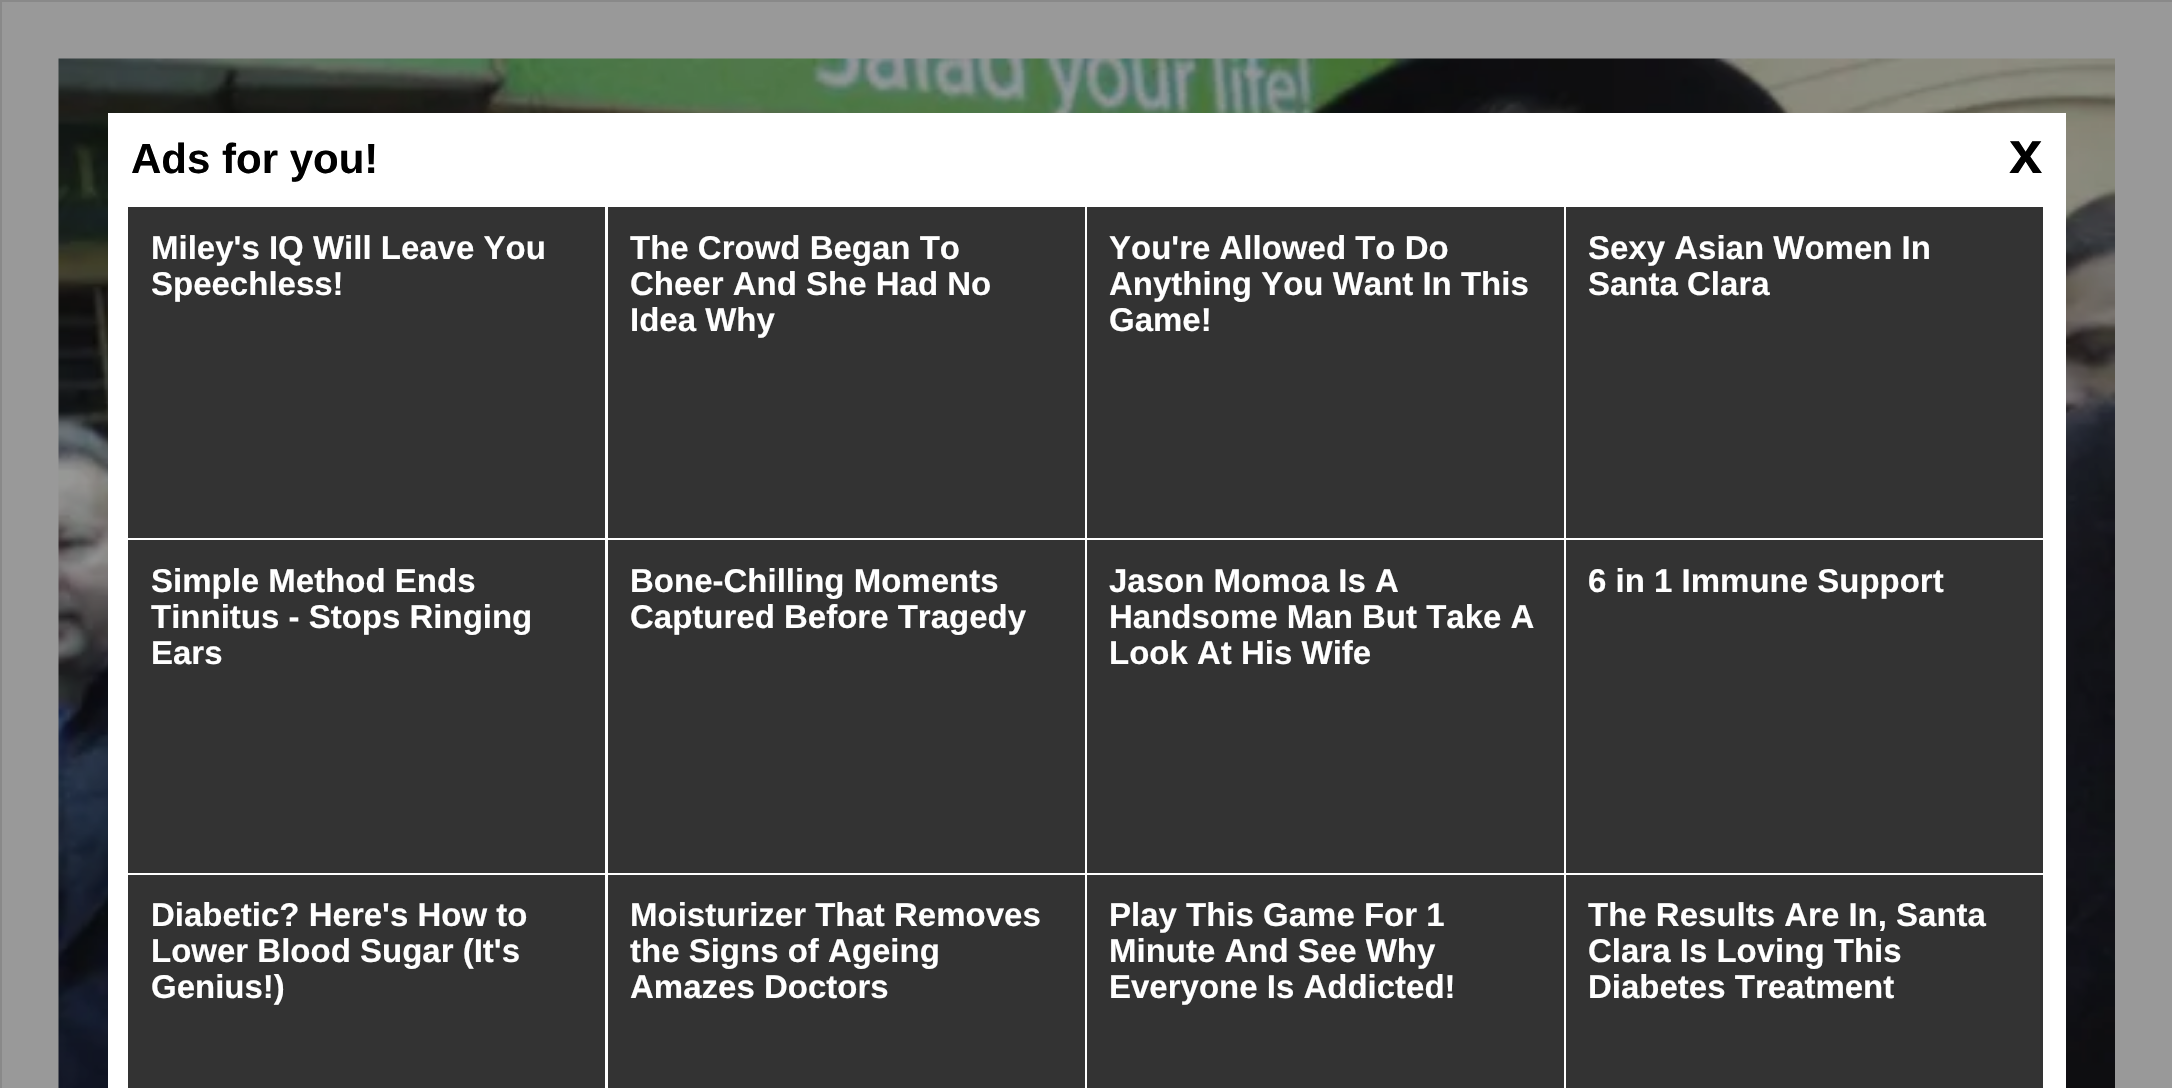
void draw(SkCanvas* canvas) {
    SkPaint paint;
    paint.setAntiAlias(true);
    canvas->clear(0xFF999999);
    paint.setStyle(SkPaint::kStroke_Style);
    paint.setStrokeWidth(2);
    paint.setColor(0xFF898989);
    canvas->drawRect(SkRect::MakeXYWH(1, 1, 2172, 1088), paint);
    canvas->drawImageRect(SkImages::DeferredFromEncodedData(SkData::MakeFromFileName("img1.png")), SkRect::MakeXYWH(58, 58, 2057, 1030), SkSamplingOptions());
    paint.setStyle(SkPaint::kFill_Style);
    paint.setColor(0xFFFFFFFF);
    canvas->drawRect(SkRect::MakeXYWH(108, 113, 1958, 975), paint);
    SkFont font1(fontMgr->matchFamilyStyle("Liberation Sans", SkFontStyle::Bold()), 42);
    font1.setSubpixel(true);
    paint.setColor(0xFF000000);
    canvas->drawString("Ads for you!", 131, 173, font1, paint);
    SkFont font2(fontMgr->matchFamilyStyle("Liberation Sans", SkFontStyle::Bold()), 60);
    font2.setSubpixel(true);
    canvas->drawString("x", 2009, 173, font2, paint);
    paint.setColor(0xFF333333);
    canvas->drawRect(SkRect::MakeXYWH(128, 207, 477, 331), paint);
    SkFont font3(fontMgr->matchFamilyStyle("Liberation Sans", SkFontStyle::Bold()), 33);
    font3.setSubpixel(true);
    paint.setColor(0xFFFFFFFF);
    canvas->drawString("Miley's IQ Will Leave You", 151, 259, font3, paint);
    canvas->drawString("Speechless!", 151, 295, font3, paint);
    paint.setColor(0xFF333333);
    canvas->drawRect(SkRect::MakeXYWH(608, 207, 477, 331), paint);
    paint.setColor(0xFFFFFFFF);
    canvas->drawString("The Crowd Began To", 630, 259, font3, paint);
    canvas->drawString("Cheer And She Had No", 630, 295, font3, paint);
    canvas->drawString("Idea Why", 630, 331, font3, paint);
    paint.setColor(0xFF333333);
    canvas->drawRect(SkRect::MakeXYWH(1087, 207, 477, 331), paint);
    paint.setColor(0xFFFFFFFF);
    canvas->drawString("You're Allowed To Do", 1109, 259, font3, paint);
    canvas->drawString("Anything You Want In This", 1109, 295, font3, paint);
    canvas->drawString("Game!", 1109, 331, font3, paint);
    paint.setColor(0xFF333333);
    canvas->drawRect(SkRect::MakeXYWH(1566, 207, 477, 331), paint);
    paint.setColor(0xFFFFFFFF);
    canvas->drawString("Sexy Asian Women In", 1588, 259, font3, paint);
    canvas->drawString("Santa Clara", 1588, 295, font3, paint);
    paint.setColor(0xFF333333);
    canvas->drawRect(SkRect::MakeXYWH(128, 540, 477, 333), paint);
    paint.setColor(0xFFFFFFFF);
    canvas->drawString("Simple Method Ends", 151, 592, font3, paint);
    canvas->drawString("Tinnitus - Stops Ringing", 151, 628, font3, paint);
    canvas->drawString("Ears", 151, 664, font3, paint);
    paint.setColor(0xFF333333);
    canvas->drawRect(SkRect::MakeXYWH(608, 540, 477, 333), paint);
    paint.setColor(0xFFFFFFFF);
    canvas->drawString("Bone-Chilling Moments", 630, 592, font3, paint);
    canvas->drawString("Captured Before Tragedy", 630, 628, font3, paint);
    paint.setColor(0xFF333333);
    canvas->drawRect(SkRect::MakeXYWH(1087, 540, 477, 333), paint);
    paint.setColor(0xFFFFFFFF);
    canvas->drawString("Jason Momoa Is A", 1109, 592, font3, paint);
    canvas->drawString("Handsome Man But Take A", 1109, 628, font3, paint);
    canvas->drawString("Look At His Wife", 1109, 664, font3, paint);
    paint.setColor(0xFF333333);
    canvas->drawRect(SkRect::MakeXYWH(1566, 540, 477, 333), paint);
    paint.setColor(0xFFFFFFFF);
    canvas->drawString("6 in 1 Immune Support", 1588, 592, font3, paint);
    paint.setColor(0xFF333333);
    canvas->drawRect(SkRect::MakeXYWH(128, 875, 477, 213), paint);
    paint.setColor(0xFFFFFFFF);
    canvas->drawString("Diabetic? Here's How to", 151, 926, font3, paint);
    canvas->drawString("Lower Blood Sugar (It's", 151, 962, font3, paint);
    canvas->drawString("Genius!)", 151, 998, font3, paint);
    paint.setColor(0xFF333333);
    canvas->drawRect(SkRect::MakeXYWH(608, 875, 477, 213), paint);
    paint.setColor(0xFFFFFFFF);
    canvas->drawString("Moisturizer That Removes", 630, 926, font3, paint);
    canvas->drawString("the Signs of Ageing", 630, 962, font3, paint);
    canvas->drawString("Amazes Doctors", 630, 998, font3, paint);
    paint.setColor(0xFF333333);
    canvas->drawRect(SkRect::MakeXYWH(1087, 875, 477, 213), paint);
    paint.setColor(0xFFFFFFFF);
    canvas->drawString("Play This Game For 1", 1109, 926, font3, paint);
    canvas->drawString("Minute And See Why", 1109, 962, font3, paint);
    canvas->drawString("Everyone Is Addicted!", 1109, 998, font3, paint);
    paint.setColor(0xFF333333);
    canvas->drawRect(SkRect::MakeXYWH(1566, 875, 477, 213), paint);
    paint.setColor(0xFFFFFFFF);
    canvas->drawString("The Results Are In, Santa", 1588, 926, font3, paint);
    canvas->drawString("Clara Is Loving This", 1588, 962, font3, paint);
    canvas->drawString("Diabetes Treatment", 1588, 998, font3, paint);
}
